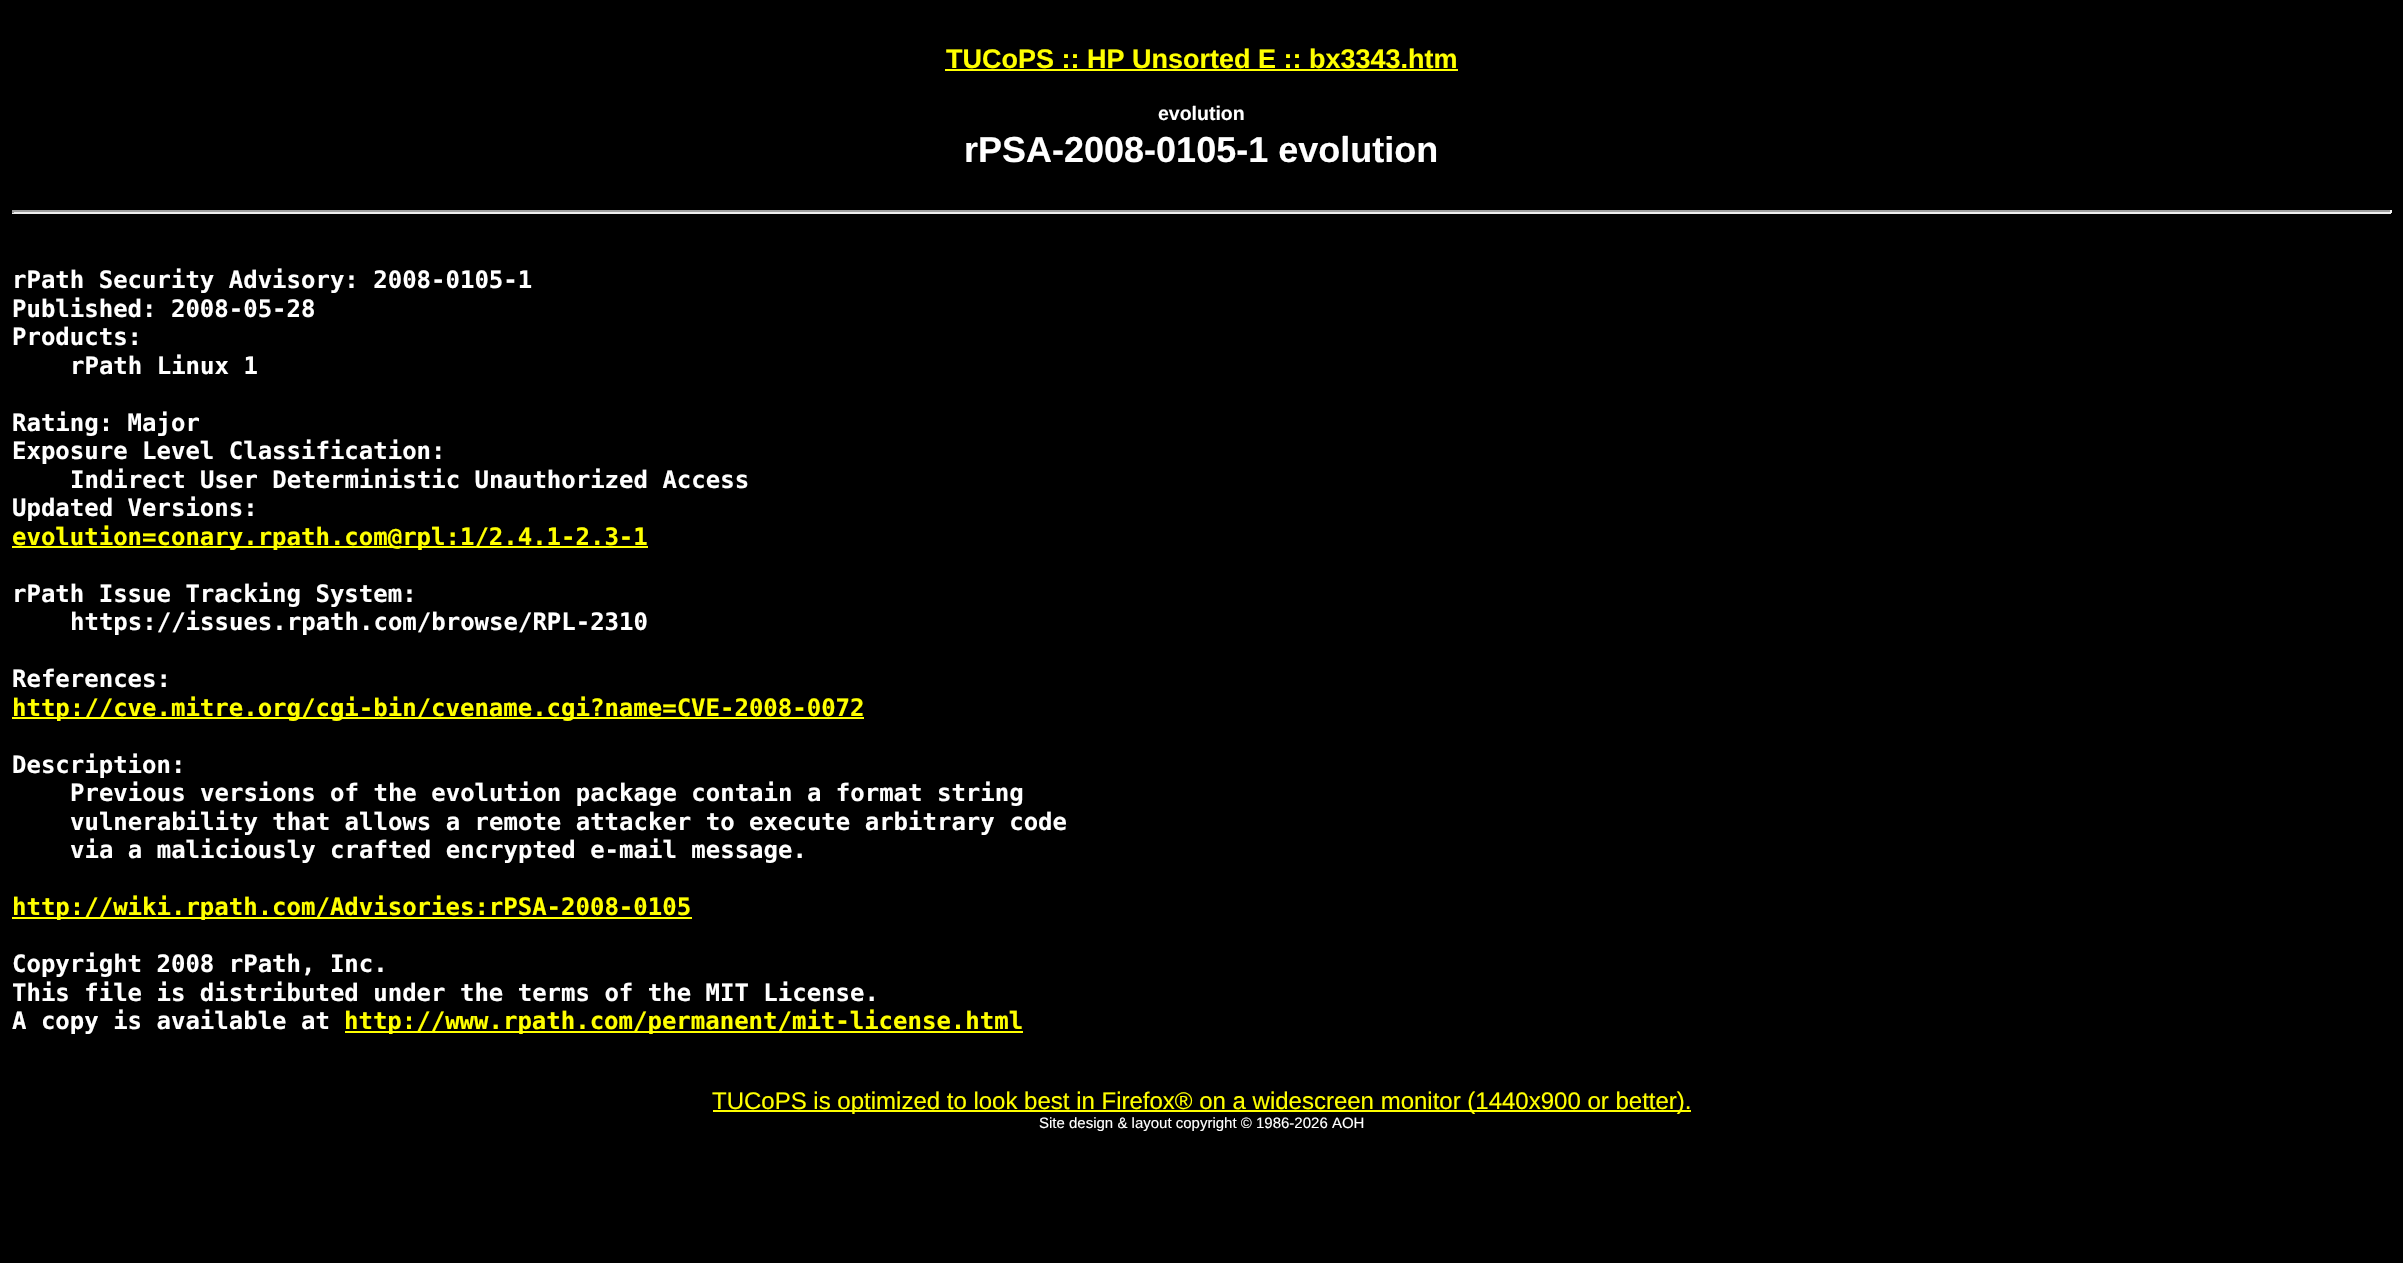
void draw(SkCanvas* canvas) {
    SkPaint paint;
    paint.setAntiAlias(true);
    canvas->clear(0xFF000000);
    SkFont font1(fontMgr->matchFamilyStyle("Liberation Sans", SkFontStyle::Bold()), 27);
    font1.setSubpixel(true);
    paint.setColor(0xFFFFFF00);
    canvas->drawString("TUCoPS :: HP Unsorted E :: bx3343.htm", 946, 68, font1, paint);
    canvas->drawRect(SkRect::MakeXYWH(945, 69, 513, 2), paint);
    SkFont font2(fontMgr->matchFamilyStyle("Liberation Sans", SkFontStyle::Bold()), 19.5f);
    font2.setSubpixel(true);
    paint.setColor(0xFFFFFFFF);
    canvas->drawString("evolution", 1158, 120, font2, paint);
    SkFont font3(fontMgr->matchFamilyStyle("Liberation Sans", SkFontStyle::Bold()), 36);
    font3.setSubpixel(true);
    canvas->drawString("rPSA-2008-0105-1 evolution", 964, 162, font3, paint);
    paint.setColor(0xFF9F9F9F);
    canvas->drawRect(SkRect::MakeXYWH(12, 210, 2379, 2), paint);
    paint.setColor(0xFFEEEEEE);
    canvas->drawRect(SkRect::MakeXYWH(2390, 210, 2, 3), paint);
    canvas->drawRect(SkRect::MakeXYWH(12, 212, 2379, 2), paint);
    paint.setColor(0xFF9F9F9F);
    canvas->drawRect(SkRect::MakeXYWH(12, 210, 2, 3), paint);
    SkFont font4(fontMgr->matchFamilyStyle("DejaVu Sans Mono", SkFontStyle::Bold()), 24);
    font4.setSubpixel(true);
    paint.setColor(0xFFFFFFFF);
    canvas->drawString("rPath Security Advisory: 2008-0105-1", 12, 288, font4, paint);
    canvas->drawString("Published: 2008-05-28", 12, 317, font4, paint);
    canvas->drawString("Products:", 12, 345, font4, paint);
    canvas->drawString("rPath Linux 1", 70, 374, font4, paint);
    canvas->drawString("Rating: Major", 12, 431, font4, paint);
    canvas->drawString("Exposure Level Classification:", 12, 459, font4, paint);
    canvas->drawString("Indirect User Deterministic Unauthorized Access", 70, 488, font4, paint);
    canvas->drawString("Updated Versions:", 12, 516, font4, paint);
    paint.setColor(0xFFFFFF00);
    canvas->drawRect(SkRect::MakeXYWH(12, 546, 636, 2), paint);
    canvas->drawString("evolution=conary.rpath.com@rpl:1/2.4.1-2.3-1", 12, 545, font4, paint);
    paint.setColor(0xFFFFFFFF);
    canvas->drawString("rPath Issue Tracking System:", 12, 602, font4, paint);
    canvas->drawString("https://issues.rpath.com/browse/RPL-2310", 70, 630, font4, paint);
    canvas->drawString("References:", 12, 687, font4, paint);
    paint.setColor(0xFFFFFF00);
    canvas->drawRect(SkRect::MakeXYWH(12, 717, 852, 2), paint);
    canvas->drawString("http://cve.mitre.org/cgi-bin/cvename.cgi?name=CVE-2008-0072", 12, 716, font4, paint);
    paint.setColor(0xFFFFFFFF);
    canvas->drawString("Description:", 12, 773, font4, paint);
    canvas->drawString("Previous versions of the evolution package contain a format string", 70, 801, font4, paint);
    canvas->drawString("vulnerability that allows a remote attacker to execute arbitrary code", 70, 830, font4, paint);
    canvas->drawString("via a maliciously crafted encrypted e-mail message.", 70, 858, font4, paint);
    paint.setColor(0xFFFFFF00);
    canvas->drawRect(SkRect::MakeXYWH(12, 917, 680, 2), paint);
    canvas->drawString("http://wiki.rpath.com/Advisories:rPSA-2008-0105", 12, 915, font4, paint);
    paint.setColor(0xFFFFFFFF);
    canvas->drawString("Copyright 2008 rPath, Inc.", 12, 972, font4, paint);
    canvas->drawString("This file is distributed under the terms of the MIT License.", 12, 1001, font4, paint);
    canvas->drawString("A copy is available at", 12, 1029, font4, paint);
    paint.setColor(0xFFFFFF00);
    canvas->drawRect(SkRect::MakeXYWH(345, 1031, 678, 2), paint);
    canvas->drawString("http://www.rpath.com/permanent/mit-license.html", 344, 1029, font4, paint);
    canvas->drawRect(SkRect::MakeXYWH(713, 1110, 978, 2), paint);
    SkFont font5(fontMgr->matchFamilyStyle("Liberation Sans", SkFontStyle::Normal()), 24);
    font5.setSubpixel(true);
    canvas->drawString("TUCoPS is optimized to look best in Firefox® on a widescreen monitor (1440x900 or better).", 712, 1109, font5, paint);
    SkFont font6(fontMgr->matchFamilyStyle("Liberation Sans", SkFontStyle::Normal()), 15);
    font6.setSubpixel(true);
    paint.setColor(0xFFFFFFFF);
    canvas->drawString("Site design & layout copyright © 1986-2026 AOH", 1039, 1128, font6, paint);
}
